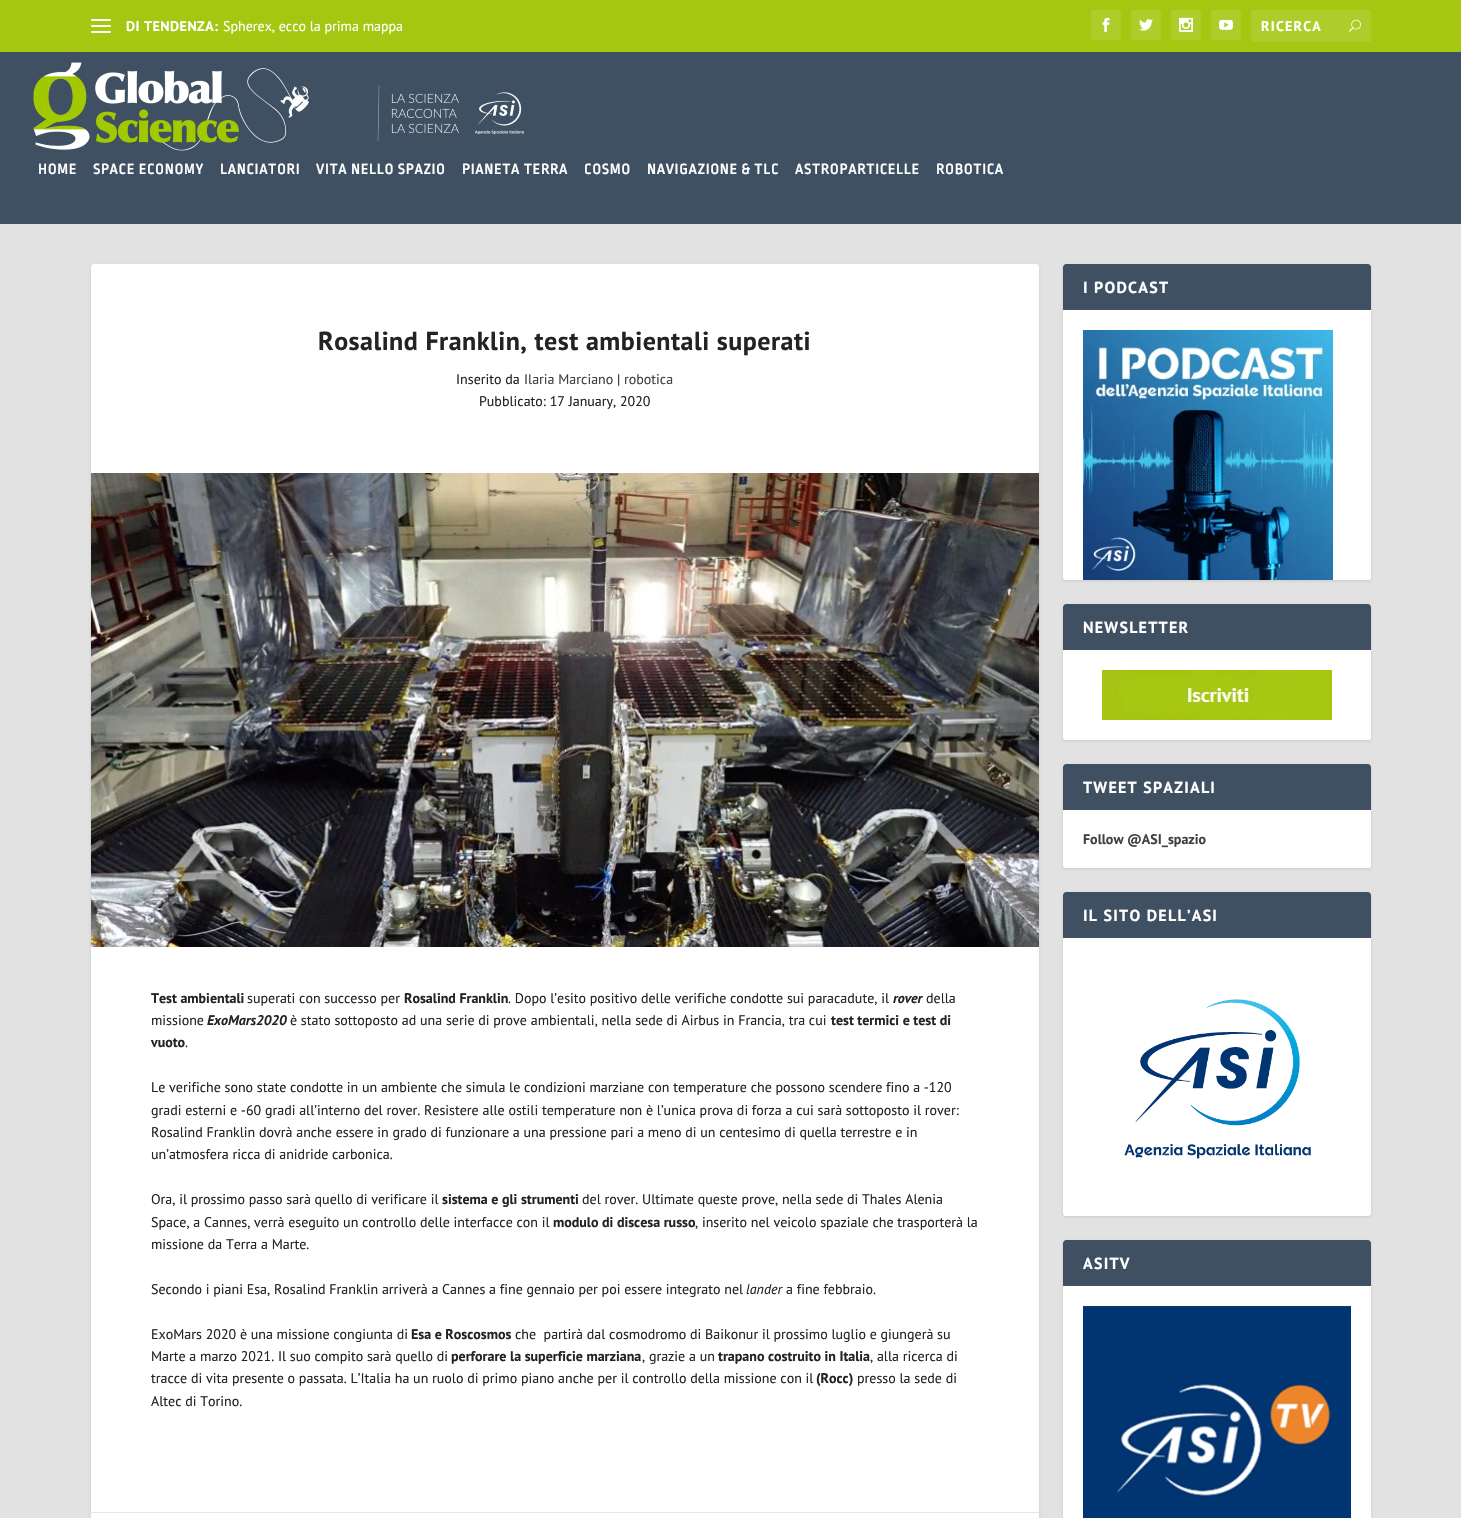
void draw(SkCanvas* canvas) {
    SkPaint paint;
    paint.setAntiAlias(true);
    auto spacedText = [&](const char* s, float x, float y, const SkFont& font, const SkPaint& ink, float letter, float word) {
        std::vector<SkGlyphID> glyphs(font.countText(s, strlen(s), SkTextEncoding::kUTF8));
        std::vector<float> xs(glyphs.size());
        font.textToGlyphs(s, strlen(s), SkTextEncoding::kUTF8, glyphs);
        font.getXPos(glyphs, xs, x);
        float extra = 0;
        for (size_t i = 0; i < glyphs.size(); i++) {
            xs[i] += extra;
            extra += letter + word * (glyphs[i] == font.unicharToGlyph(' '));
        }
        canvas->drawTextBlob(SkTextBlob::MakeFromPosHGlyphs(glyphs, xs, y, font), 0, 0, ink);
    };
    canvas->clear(0xFFE2E2E2);
    paint.setColor(0xFFA6C712);
    canvas->drawRect(SkRect::MakeXYWH(0, 0, 1461, 52), paint);
    paint.setColor(0xFFFFFFFF);
    canvas->drawRoundRect(SkRect::MakeXYWH(91, 19, 20, 2), 1, 1, paint);
    canvas->drawRoundRect(SkRect::MakeXYWH(91, 25, 20, 2), 1, 1, paint);
    canvas->drawRoundRect(SkRect::MakeXYWH(91, 31, 20, 2), 1, 1, paint);
    SkFont font1(fontMgr->matchFamilyStyle("PT Sans", SkFontStyle::Bold()), 14);
    font1.setSubpixel(true);
    spacedText("DI TENDENZA:", 126, 31, font1, paint, 0.5f, 0);
    SkFont font2(fontMgr->matchFamilyStyle("PT Sans", SkFontStyle::Normal()), 14);
    font2.setSubpixel(true);
    canvas->drawString("Spherex, ecco la prima mappa", 223, 31, font2, paint);
    paint.setColor(0xFFAFCD2A);
    canvas->drawRoundRect(SkRect::MakeXYWH(1091, 10, 30, 30), 3, 3, paint);
    canvas->drawImageRect(SkImages::DeferredFromEncodedData(SkData::MakeFromFileName("img1.png")), SkRect::MakeXYWH(1102, 17, 8, 15), SkSamplingOptions());
    canvas->drawRoundRect(SkRect::MakeXYWH(1131, 10, 30, 30), 3, 3, paint);
    canvas->drawImageRect(SkImages::DeferredFromEncodedData(SkData::MakeFromFileName("img2.png")), SkRect::MakeXYWH(1139, 19, 14, 12), SkSamplingOptions());
    canvas->drawRoundRect(SkRect::MakeXYWH(1171, 10, 30, 30), 3, 3, paint);
    canvas->drawImageRect(SkImages::DeferredFromEncodedData(SkData::MakeFromFileName("img3.png")), SkRect::MakeXYWH(1179, 17, 14, 15), SkSamplingOptions());
    canvas->drawRoundRect(SkRect::MakeXYWH(1211, 10, 30, 30), 3, 3, paint);
    canvas->drawImageRect(SkImages::DeferredFromEncodedData(SkData::MakeFromFileName("img4.png")), SkRect::MakeXYWH(1219, 19, 14, 11), SkSamplingOptions());
    canvas->drawRoundRect(SkRect::MakeXYWH(1251, 10, 120, 32), 3, 3, paint);
    paint.setColor(0xFFFFFFFF);
    spacedText("RICERCA", 1261, 31, font1, paint, 1.25f, 0);
    canvas->drawImageRect(SkImages::DeferredFromEncodedData(SkData::MakeFromFileName("img5.png")), SkRect::MakeXYWH(1349, 19, 12, 13), SkSamplingOptions());
    paint.setColor(0xFF3E5062);
    canvas->drawRect(SkRect::MakeXYWH(0, 52, 1461, 172), paint);
    canvas->drawImageRect(SkImages::DeferredFromEncodedData(SkData::MakeFromFileName("img6.png")), SkRect::MakeXYWH(33, 62, 491, 89), SkSamplingOptions());
    SkFont font3(fontMgr->matchFamilyStyle("Ropa Sans", SkFontStyle::Bold()), 15);
    font3.setSubpixel(true);
    paint.setColor(0xFFFFFFFF);
    spacedText("HOME", 38, 174, font3, paint, 1, 0);
    spacedText("SPACE ECONOMY", 93, 174, font3, paint, 1, 0);
    spacedText("LANCIATORI", 220, 174, font3, paint, 1, 0);
    spacedText("VITA NELLO SPAZIO", 316, 174, font3, paint, 1, 0);
    spacedText("PIANETA TERRA", 462, 174, font3, paint, 1, 0);
    spacedText("COSMO", 584, 174, font3, paint, 1, 0);
    spacedText("NAVIGAZIONE & TLC", 647, 174, font3, paint, 1, 0);
    spacedText("ASTROPARTICELLE", 795, 174, font3, paint, 1, 0);
    spacedText("ROBOTICA", 936, 174, font3, paint, 1, 0);
    paint.setColor(0x1A000000);
    paint.setMaskFilter(SkMaskFilter::MakeBlur(kNormal_SkBlurStyle, 1.5f));
    canvas->drawRoundRect(SkRect::MakeXYWH(91, 265, 948, 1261), 3, 3, paint);
    paint.setMaskFilter(nullptr);
    paint.setColor(0xFFFFFFFF);
    canvas->drawRoundRect(SkRect::MakeXYWH(91, 264, 948, 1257), 3, 3, paint);
    SkFont font4(fontMgr->matchFamilyStyle("PT Sans", SkFontStyle::Bold()), 26);
    font4.setSubpixel(true);
    paint.setColor(0xFF232323);
    spacedText("Rosalind Franklin, test ambientali superati", 318, 350, font4, paint, 0.5f, 0);
    canvas->drawString("Inserito da", 456, 384, font2, paint);
    paint.setColor(0xFF404040);
    canvas->drawString("Ilaria Marciano", 524, 384, font2, paint);
    paint.setColor(0xFF232323);
    canvas->drawString("|", 617, 384, font2, paint);
    paint.setColor(0xFF404040);
    canvas->drawString("robotica", 624, 384, font2, paint);
    paint.setColor(0xFF232323);
    canvas->drawString("Pubblicato: 17 January, 2020", 479, 406, font2, paint);
    canvas->drawImageRect(SkImages::DeferredFromEncodedData(SkData::MakeFromFileName("img7.png")), SkRect::MakeXYWH(91, 473, 948, 474), SkSamplingOptions());
    canvas->drawString("Test ambientali", 151, 1003, font1, paint);
    canvas->drawString("superati con successo per", 247, 1003, font2, paint);
    canvas->drawString("Rosalind Franklin", 404, 1003, font1, paint);
    canvas->drawString(". Dopo l’esito positivo delle verifiche condotte sui paracadute, il", 508, 1003, font2, paint);
    SkFont font5(fontMgr->matchFamilyStyle("PT Sans", SkFontStyle::BoldItalic()), 14);
    font5.setSubpixel(true);
    canvas->drawString("rover", 893, 1003, font5, paint);
    canvas->drawString("della", 926, 1003, font2, paint);
    canvas->drawString("missione", 151, 1025, font2, paint);
    canvas->drawString("ExoMars2020", 207, 1025, font5, paint);
    canvas->drawString("è stato sottoposto ad una serie di prove ambientali, nella sede di Airbus in Francia, tra cui", 290, 1025, font2, paint);
    canvas->drawString("test termici e test di", 831, 1025, font1, paint);
    canvas->drawString("vuoto", 151, 1047, font1, paint);
    canvas->drawString(".", 185, 1047, font2, paint);
    canvas->drawString("Le verifiche sono state condotte in un ambiente che simula le condizioni marziane con temperature che possono scendere fino a -120", 151, 1092, font2, paint);
    canvas->drawString("gradi esterni e -60 gradi all’interno del rover. Resistere alle ostili temperature non è l’unica prova di forza a cui sarà sottoposto il rover:", 151, 1115, font2, paint);
    canvas->drawString("Rosalind Franklin dovrà anche essere in grado di funzionare a una pressione pari a meno di un centesimo di quella terrestre e in", 151, 1137, font2, paint);
    canvas->drawString("un’atmosfera ricca di anidride carbonica.", 151, 1159, font2, paint);
    canvas->drawString("Ora, il prossimo passo sarà quello di verificare il", 151, 1204, font2, paint);
    canvas->drawString("sistema e gli strumenti", 442, 1204, font1, paint);
    canvas->drawString("del rover. Ultimate queste prove, nella sede di Thales Alenia", 582, 1204, font2, paint);
    canvas->drawString("Space, a Cannes, verrà eseguito un controllo delle interfacce con il", 151, 1227, font2, paint);
    canvas->drawString("modulo di discesa russo", 553, 1227, font1, paint);
    canvas->drawString(", inserito nel veicolo spaziale che trasporterà la", 695, 1227, font2, paint);
    canvas->drawString("missione da Terra a Marte.", 151, 1249, font2, paint);
    canvas->drawString("Secondo i piani Esa, Rosalind Franklin arriverà a Cannes a fine gennaio per poi essere integrato nel", 151, 1294, font2, paint);
    SkFont font6(fontMgr->matchFamilyStyle("PT Sans", SkFontStyle::Italic()), 14);
    font6.setSubpixel(true);
    canvas->drawString("lander", 746, 1294, font6, paint);
    canvas->drawString("a fine febbraio.", 786, 1294, font2, paint);
    canvas->drawString("ExoMars 2020 è una missione congiunta di", 151, 1339, font2, paint);
    canvas->drawString("Esa e Roscosmos", 411, 1339, font1, paint);
    canvas->drawString("che  partirà dal cosmodromo di Baikonur il prossimo luglio e giungerà su", 515, 1339, font2, paint);
    canvas->drawString("Marte a marzo 2021. Il suo compito sarà quello di", 151, 1361, font2, paint);
    canvas->drawString("perforare la superficie marziana", 451, 1361, font1, paint);
    canvas->drawString(", grazie a un", 642, 1361, font2, paint);
    canvas->drawString("trapano costruito in Italia", 718, 1361, font1, paint);
    canvas->drawString(", alla ricerca di", 870, 1361, font2, paint);
    canvas->drawString("tracce di vita presente o passata. L’Italia ha un ruolo di primo piano anche per il controllo della missione con il", 151, 1383, font2, paint);
    canvas->drawString("(Rocc)", 816, 1383, font1, paint);
    canvas->drawString("presso la sede di", 857, 1383, font2, paint);
    canvas->drawString("Altec di Torino.", 151, 1406, font2, paint);
    paint.setColor(0xFFE6E6E6);
    canvas->drawRect(SkRect::MakeXYWH(91, 1512, 948, 1), paint);
    paint.setColor(0x1A000000);
    paint.setMaskFilter(SkMaskFilter::MakeBlur(kNormal_SkBlurStyle, 1.5f));
    canvas->drawRoundRect(SkRect::MakeXYWH(1063, 265, 308, 316), 3, 3, paint);
    paint.setMaskFilter(nullptr);
    paint.setColor(0xFFFFFFFF);
    canvas->drawRoundRect(SkRect::MakeXYWH(1063, 264, 308, 316), 3, 3, paint);
    paint.setColor(0xFF3E5062);
    canvas->drawPath(SkPathBuilder().moveTo(1066, 264).lineTo(1368, 264).cubicTo(1369.5f, 264, 1371, 265.5f, 1371, 267).lineTo(1371, 310).lineTo(1063, 310).lineTo(1063, 267).cubicTo(1063, 265.5f, 1064.5f, 264, 1066, 264).close().detach(), paint);
    SkFont font7(fontMgr->matchFamilyStyle("PT Sans", SkFontStyle::Bold()), 16);
    font7.setSubpixel(true);
    paint.setColor(0xFFFFFFFF);
    spacedText("I PODCAST", 1083, 293, font7, paint, 1.25f, 0);
    canvas->drawImageRect(SkImages::DeferredFromEncodedData(SkData::MakeFromFileName("img8.png")), SkRect::MakeXYWH(1083, 330, 250, 250), SkSamplingOptions());
    paint.setColor(0x1A000000);
    paint.setMaskFilter(SkMaskFilter::MakeBlur(kNormal_SkBlurStyle, 1.5f));
    canvas->drawRoundRect(SkRect::MakeXYWH(1063, 605, 308, 136), 3, 3, paint);
    paint.setMaskFilter(nullptr);
    paint.setColor(0xFFFFFFFF);
    canvas->drawRoundRect(SkRect::MakeXYWH(1063, 604, 308, 136), 3, 3, paint);
    paint.setColor(0xFF3E5062);
    canvas->drawPath(SkPathBuilder().moveTo(1066, 604).lineTo(1368, 604).cubicTo(1369.5f, 604, 1371, 605.5f, 1371, 607).lineTo(1371, 650).lineTo(1063, 650).lineTo(1063, 607).cubicTo(1063, 605.5f, 1064.5f, 604, 1066, 604).close().detach(), paint);
    paint.setColor(0xFFFFFFFF);
    spacedText("NEWSLETTER", 1083, 633, font7, paint, 1.25f, 0);
    canvas->drawImageRect(SkImages::DeferredFromEncodedData(SkData::MakeFromFileName("img9.png")), SkRect::MakeXYWH(1102, 670, 230, 50), SkSamplingOptions());
    paint.setColor(0x1A000000);
    paint.setMaskFilter(SkMaskFilter::MakeBlur(kNormal_SkBlurStyle, 1.5f));
    canvas->drawRoundRect(SkRect::MakeXYWH(1063, 765, 308, 104), 3, 3, paint);
    paint.setMaskFilter(nullptr);
    paint.setColor(0xFFFFFFFF);
    canvas->drawRoundRect(SkRect::MakeXYWH(1063, 764, 308, 104), 3, 3, paint);
    paint.setColor(0xFF3E5062);
    canvas->drawPath(SkPathBuilder().moveTo(1066, 764).lineTo(1368, 764).cubicTo(1369.5f, 764, 1371, 765.5f, 1371, 767).lineTo(1371, 810).lineTo(1063, 810).lineTo(1063, 767).cubicTo(1063, 765.5f, 1064.5f, 764, 1066, 764).close().detach(), paint);
    paint.setColor(0xFFFFFFFF);
    spacedText("TWEET SPAZIALI", 1083, 793, font7, paint, 1.25f, 0);
    paint.setColor(0xFF404040);
    canvas->drawString("Follow @ASI_spazio", 1083, 844, font1, paint);
    paint.setColor(0x1A000000);
    paint.setMaskFilter(SkMaskFilter::MakeBlur(kNormal_SkBlurStyle, 1.5f));
    canvas->drawRoundRect(SkRect::MakeXYWH(1063, 893, 308, 324), 3, 3, paint);
    paint.setMaskFilter(nullptr);
    paint.setColor(0xFFFFFFFF);
    canvas->drawRoundRect(SkRect::MakeXYWH(1063, 892, 308, 324), 3, 3, paint);
    paint.setColor(0xFF3E5062);
    canvas->drawPath(SkPathBuilder().moveTo(1066, 892).lineTo(1368, 892).cubicTo(1369.5f, 892, 1371, 893.5f, 1371, 895).lineTo(1371, 938).lineTo(1063, 938).lineTo(1063, 895).cubicTo(1063, 893.5f, 1064.5f, 892, 1066, 892).close().detach(), paint);
    paint.setColor(0xFFFFFFFF);
    spacedText("IL SITO DELL’ASI", 1083, 921, font7, paint, 1.25f, 0);
    canvas->drawImageRect(SkImages::DeferredFromEncodedData(SkData::MakeFromFileName("img10.png")), SkRect::MakeXYWH(1124, 999, 187, 160), SkSamplingOptions());
    paint.setColor(0x1A000000);
    paint.setMaskFilter(SkMaskFilter::MakeBlur(kNormal_SkBlurStyle, 1.5f));
    canvas->drawRoundRect(SkRect::MakeXYWH(1063, 1241, 308, 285), 3, 3, paint);
    paint.setMaskFilter(nullptr);
    paint.setColor(0xFFFFFFFF);
    canvas->drawRoundRect(SkRect::MakeXYWH(1063, 1240, 308, 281), 3, 3, paint);
    paint.setColor(0xFF3E5062);
    canvas->drawPath(SkPathBuilder().moveTo(1066, 1240).lineTo(1368, 1240).cubicTo(1369.5f, 1240, 1371, 1241.5f, 1371, 1243).lineTo(1371, 1286).lineTo(1063, 1286).lineTo(1063, 1243).cubicTo(1063, 1241.5f, 1064.5f, 1240, 1066, 1240).close().detach(), paint);
    paint.setColor(0xFFFFFFFF);
    spacedText("ASITV", 1083, 1269, font7, paint, 1.25f, 0);
    canvas->drawImageRect(SkImages::DeferredFromEncodedData(SkData::MakeFromFileName("img11.png")), SkRect::MakeXYWH(1083, 1306, 268, 212), SkSamplingOptions());
}
